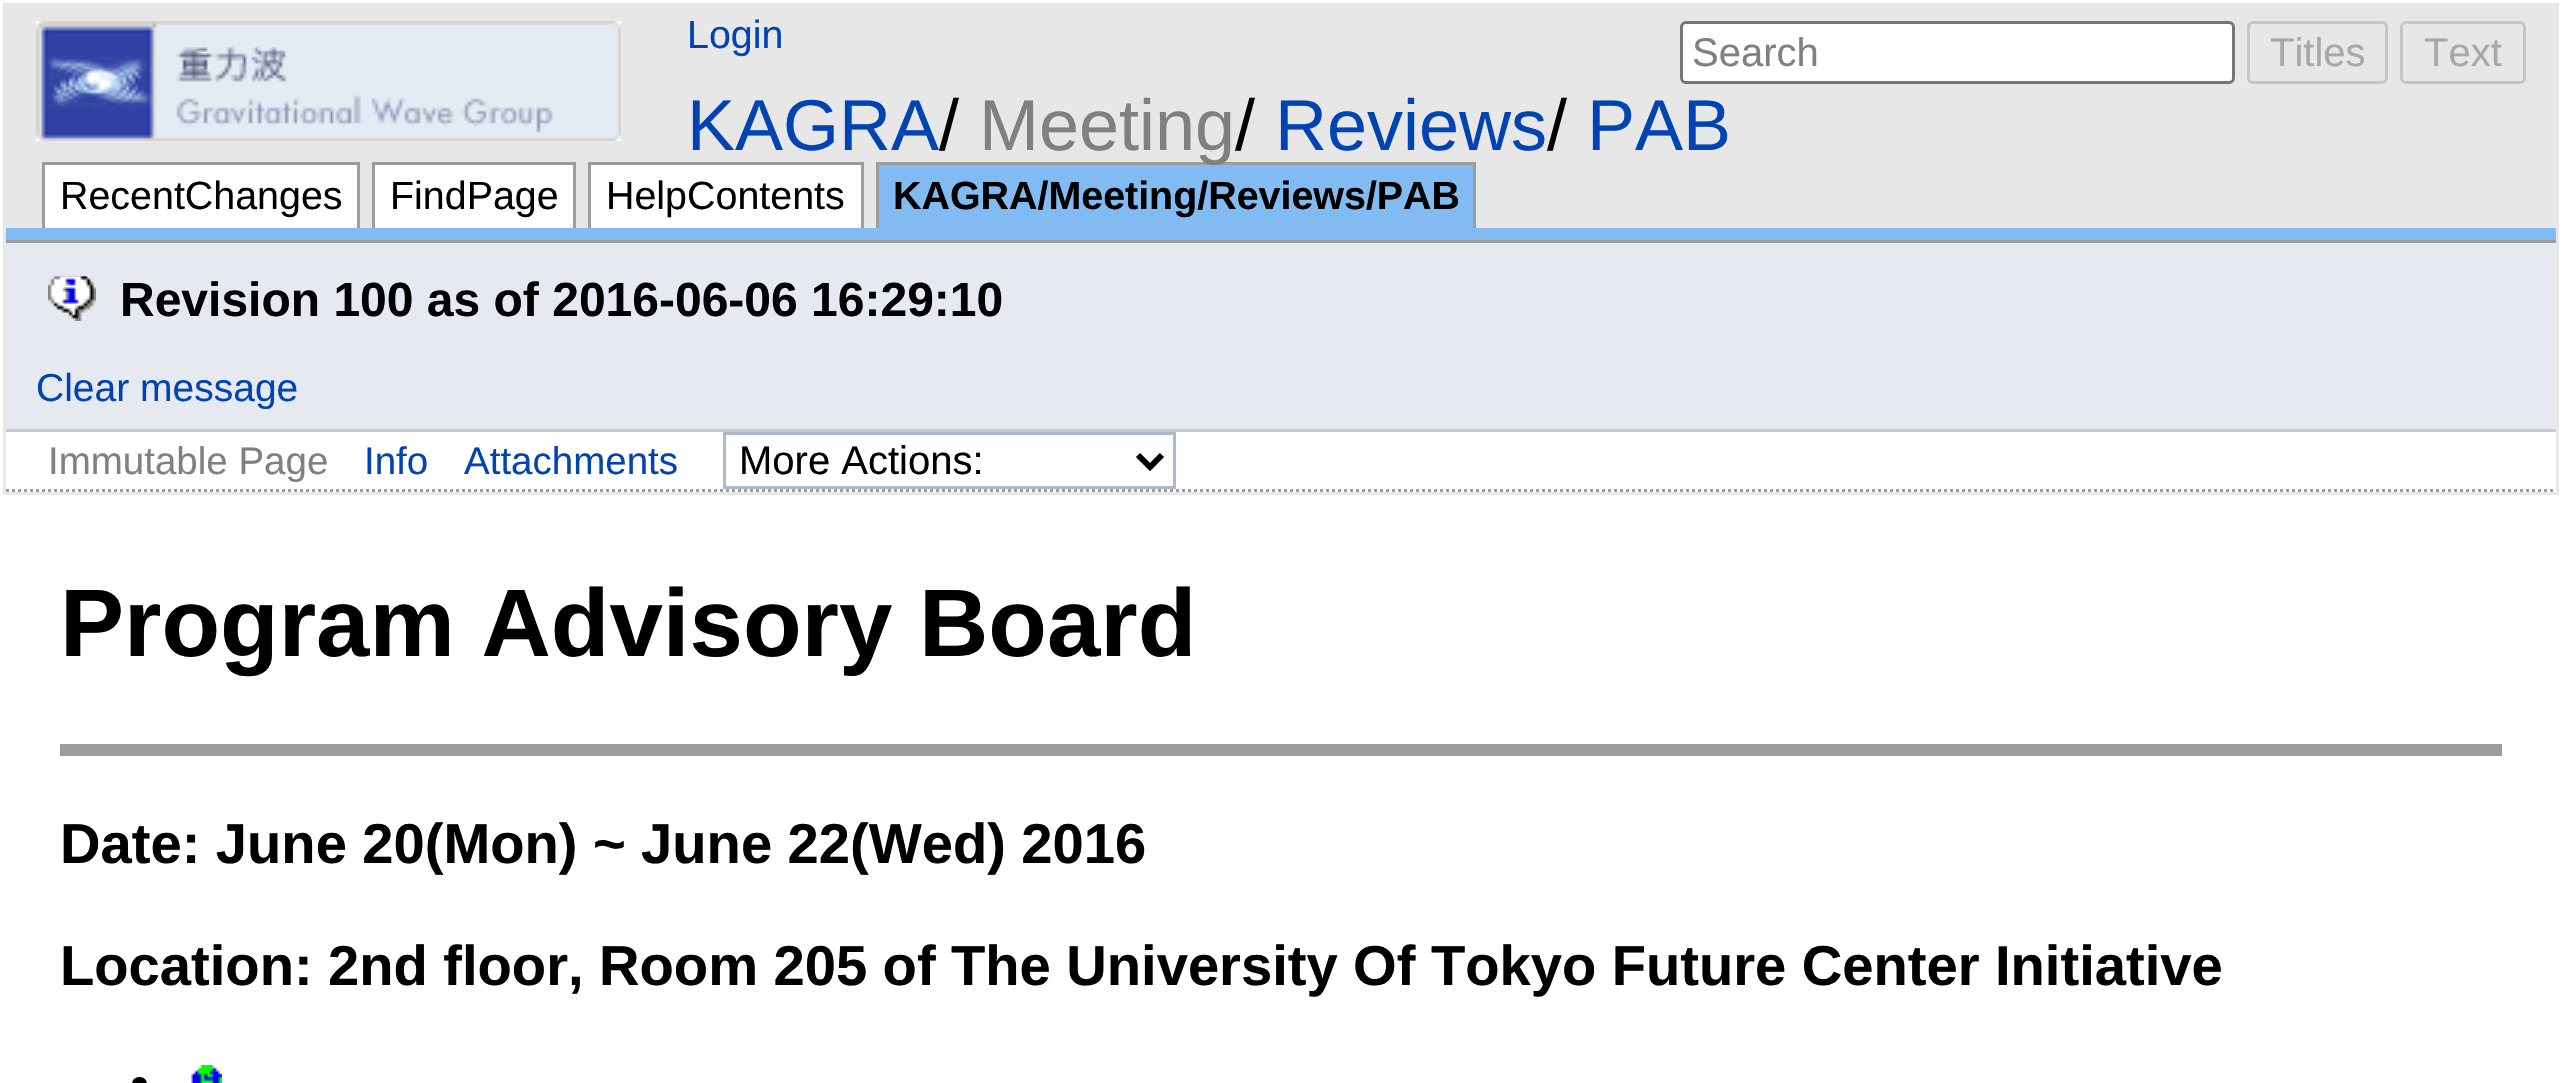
void draw(SkCanvas* canvas) {
    SkPaint paint;
    paint.setAntiAlias(true);
    auto spacedText = [&](const char* s, float x, float y, const SkFont& font, const SkPaint& ink, float letter, float word) {
        std::vector<SkGlyphID> glyphs(font.countText(s, strlen(s), SkTextEncoding::kUTF8));
        std::vector<float> xs(glyphs.size());
        font.textToGlyphs(s, strlen(s), SkTextEncoding::kUTF8, glyphs);
        font.getXPos(glyphs, xs, x);
        float extra = 0;
        for (size_t i = 0; i < glyphs.size(); i++) {
            xs[i] += extra;
            extra += letter + word * (glyphs[i] == font.unicharToGlyph(' '));
        }
        canvas->drawTextBlob(SkTextBlob::MakeFromPosHGlyphs(glyphs, xs, y, font), 0, 0, ink);
    };
    canvas->clear(0xFFFFFFFF);
    paint.setColor(0xFFE7E7E7);
    canvas->drawRect(SkRect::MakeXYWH(3, 3, 2556, 492), paint);
    canvas->drawImageRect(SkImages::DeferredFromEncodedData(SkData::MakeFromFileName("img1.png")), SkRect::MakeXYWH(36, 21, 585, 120), SkSamplingOptions());
    SkFont font1(fontMgr->matchFamilyStyle("Liberation Sans", SkFontStyle::Normal()), 39.4f);
    font1.setSubpixel(true);
    paint.setColor(0xFF0044B3);
    canvas->drawString("Login", 687, 48, font1, paint);
    paint.setColor(0xFFFFFFFF);
    canvas->drawRoundRect(SkRect::MakeXYWH(1681.5f, 22.5f, 552, 60), 4.5f, 4.5f, paint);
    paint.setStyle(SkPaint::kStroke_Style);
    paint.setStrokeWidth(3);
    paint.setColor(0xFF767676);
    canvas->drawRoundRect(SkRect::MakeXYWH(1681.5f, 22.5f, 552, 60), 4.5f, 4.5f, paint);
    SkFont font2(fontMgr->matchFamilyStyle("Liberation Sans", SkFontStyle::Normal()), 40);
    font2.setSubpixel(true);
    paint.setStyle(SkPaint::kFill_Style);
    paint.setColor(0xFF808080);
    canvas->drawString("Search", 1692, 66, font2, paint);
    paint.setStyle(SkPaint::kStroke_Style);
    paint.setColor(0xFFC6C6C6);
    canvas->drawRoundRect(SkRect::MakeXYWH(2248.5f, 22.5f, 138, 60), 4.5f, 4.5f, paint);
    paint.setStyle(SkPaint::kFill_Style);
    paint.setColor(0xFFA8A8A8);
    canvas->drawString("Titles", 2270, 66, font2, paint);
    paint.setStyle(SkPaint::kStroke_Style);
    paint.setColor(0xFFC6C6C6);
    canvas->drawRoundRect(SkRect::MakeXYWH(2401.5f, 22.5f, 123, 60), 4.5f, 4.5f, paint);
    paint.setStyle(SkPaint::kFill_Style);
    paint.setColor(0xFFA8A8A8);
    canvas->drawString("Text", 2424, 66, font2, paint);
    SkFont font3(fontMgr->matchFamilyStyle("Liberation Sans", SkFontStyle::Normal()), 72);
    font3.setSubpixel(true);
    paint.setColor(0xFF0044B3);
    canvas->drawString("KAGRA", 687, 150, font3, paint);
    paint.setColor(0xFF000000);
    canvas->drawString("/", 939, 150, font3, paint);
    paint.setColor(0xFF9C9C9C);
    canvas->drawRect(SkRect::MakeXYWH(876, 162, 600, 3), paint);
    paint.setColor(0xFF808080);
    canvas->drawString("Meeting", 979, 150, font3, paint);
    paint.setColor(0xFF000000);
    canvas->drawString("/", 1235, 150, font3, paint);
    paint.setColor(0xFF0044B3);
    canvas->drawString("Reviews", 1275, 150, font3, paint);
    paint.setColor(0xFF000000);
    canvas->drawString("/", 1547, 150, font3, paint);
    paint.setColor(0xFF0044B3);
    canvas->drawString("PAB", 1587, 150, font3, paint);
    paint.setColor(0xFFFFFFFF);
    canvas->drawRect(SkRect::MakeXYWH(45, 165, 312, 63), paint);
    paint.setColor(0xFF9C9C9C);
    canvas->drawRect(SkRect::MakeXYWH(42, 162, 318, 3), paint);
    canvas->drawRect(SkRect::MakeXYWH(357, 162, 3, 66), paint);
    canvas->drawRect(SkRect::MakeXYWH(42, 162, 3, 66), paint);
    paint.setColor(0xFF000000);
    canvas->drawString("RecentChanges", 60, 209, font1, paint);
    paint.setColor(0xFFFFFFFF);
    canvas->drawRect(SkRect::MakeXYWH(375, 165, 198, 63), paint);
    paint.setColor(0xFF9C9C9C);
    canvas->drawRect(SkRect::MakeXYWH(372, 162, 204, 3), paint);
    canvas->drawRect(SkRect::MakeXYWH(573, 162, 3, 66), paint);
    canvas->drawRect(SkRect::MakeXYWH(372, 162, 3, 66), paint);
    paint.setColor(0xFF000000);
    canvas->drawString("FindPage", 390, 209, font1, paint);
    paint.setColor(0xFFFFFFFF);
    canvas->drawRect(SkRect::MakeXYWH(591, 165, 270, 63), paint);
    paint.setColor(0xFF9C9C9C);
    canvas->drawRect(SkRect::MakeXYWH(588, 162, 276, 3), paint);
    canvas->drawRect(SkRect::MakeXYWH(861, 162, 3, 66), paint);
    canvas->drawRect(SkRect::MakeXYWH(588, 162, 3, 66), paint);
    paint.setColor(0xFF000000);
    canvas->drawString("HelpContents", 606, 209, font1, paint);
    paint.setColor(0xFF81BBF2);
    canvas->drawRect(SkRect::MakeXYWH(879, 165, 594, 63), paint);
    paint.setColor(0xFF9C9C9C);
    canvas->drawRect(SkRect::MakeXYWH(1473, 162, 3, 66), paint);
    canvas->drawRect(SkRect::MakeXYWH(876, 162, 3, 66), paint);
    SkFont font4(fontMgr->matchFamilyStyle("Liberation Sans", SkFontStyle::Bold()), 39.4f);
    font4.setSubpixel(true);
    paint.setColor(0xFF000000);
    canvas->drawString("KAGRA/Meeting/Reviews/PAB", 893, 209, font4, paint);
    paint.setColor(0xFF81BBF2);
    canvas->drawRect(SkRect::MakeXYWH(6, 228, 2550, 12), paint);
    paint.setColor(0xFF9C9C9C);
    canvas->drawRect(SkRect::MakeXYWH(6, 240, 2550, 3), paint);
    paint.setColor(0xFFE6EAF0);
    canvas->drawRect(SkRect::MakeXYWH(6, 243, 2550, 186), paint);
    paint.setColor(0xFFC9C9C9);
    canvas->drawRect(SkRect::MakeXYWH(6, 429, 2550, 3), paint);
    canvas->drawImageRect(SkImages::DeferredFromEncodedData(SkData::MakeFromFileName("img2.png")), SkRect::MakeXYWH(48, 276, 48, 45), SkSamplingOptions());
    SkFont font5(fontMgr->matchFamilyStyle("Liberation Sans", SkFontStyle::Bold()), 48);
    font5.setSubpixel(true);
    paint.setColor(0xFF000000);
    canvas->drawString("Revision 100 as of 2016-06-06 16:29:10", 120, 316, font5, paint);
    SkFont font6(fontMgr->matchFamilyStyle("Liberation Sans", SkFontStyle::Normal()), 39);
    font6.setSubpixel(true);
    paint.setColor(0xFF0044B3);
    canvas->drawString("Clear message", 36, 401, font6, paint);
    paint.setColor(0xFFFFFFFF);
    canvas->drawRect(SkRect::MakeXYWH(6, 432, 2550, 60), paint);
    paint.setStyle(SkPaint::kStroke_Style);
    paint.setColor(0xFF9C9C9C);
    paint.setPathEffect(SkDashPathEffect::Make({{3, 3}}, 0));
    canvas->drawPath(SkPathBuilder().moveTo(6, 490.5f).lineTo(2556, 490.5f).detach(), paint);
    paint.setPathEffect(nullptr);
    SkFont font7(fontMgr->matchFamilyStyle("Liberation Sans", SkFontStyle::Normal()), 38.5f);
    font7.setSubpixel(true);
    paint.setStyle(SkPaint::kFill_Style);
    paint.setColor(0xFF808080);
    canvas->drawString("Immutable Page", 48, 474, font7, paint);
    paint.setColor(0xFF0044B3);
    canvas->drawString("Info", 364, 474, font7, paint);
    canvas->drawString("Attachments", 464, 474, font7, paint);
    paint.setStyle(SkPaint::kStroke_Style);
    paint.setColor(0xFFADB9CC);
    canvas->drawRect(SkRect::MakeXYWH(724.5f, 433.5f, 450, 54), paint);
    paint.setStrokeWidth(6);
    paint.setColor(0xFF000000);
    canvas->drawPath(SkPathBuilder().moveTo(1138, 455).lineTo(1150, 467).lineTo(1162, 455).detach(), paint);
    paint.setStyle(SkPaint::kFill_Style);
    canvas->drawString("More Actions:", 739, 474, font2, paint);
    SkFont font8(fontMgr->matchFamilyStyle("Liberation Sans", SkFontStyle::Bold()), 96);
    font8.setSubpixel(true);
    canvas->drawString("Program Advisory Board", 60, 656, font8, paint);
    paint.setColor(0xFF9C9C9C);
    canvas->drawRect(SkRect::MakeXYWH(60, 744, 2442, 12), paint);
    SkFont font9(fontMgr->matchFamilyStyle("Liberation Sans", SkFontStyle::Bold()), 56.15f);
    font9.setSubpixel(true);
    paint.setColor(0xFF000000);
    spacedText("Date: June 20(Mon) ~ June 22(Wed) 2016", 60, 863, font9, paint, 0, -0.2f);
    spacedText("Location: 2nd floor, Room 205 of The University Of Tokyo Future Center Initiative", 60, 985, font9, paint, 0, -0.2f);
    canvas->drawRoundRect(SkRect::MakeXYWH(132, 1077, 15, 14), 7.5f, 7.5f, paint);
    canvas->drawImageRect(SkImages::DeferredFromEncodedData(SkData::MakeFromFileName("img3.png")), SkRect::MakeXYWH(191, 1065, 31, 18), SkSamplingOptions());
}
